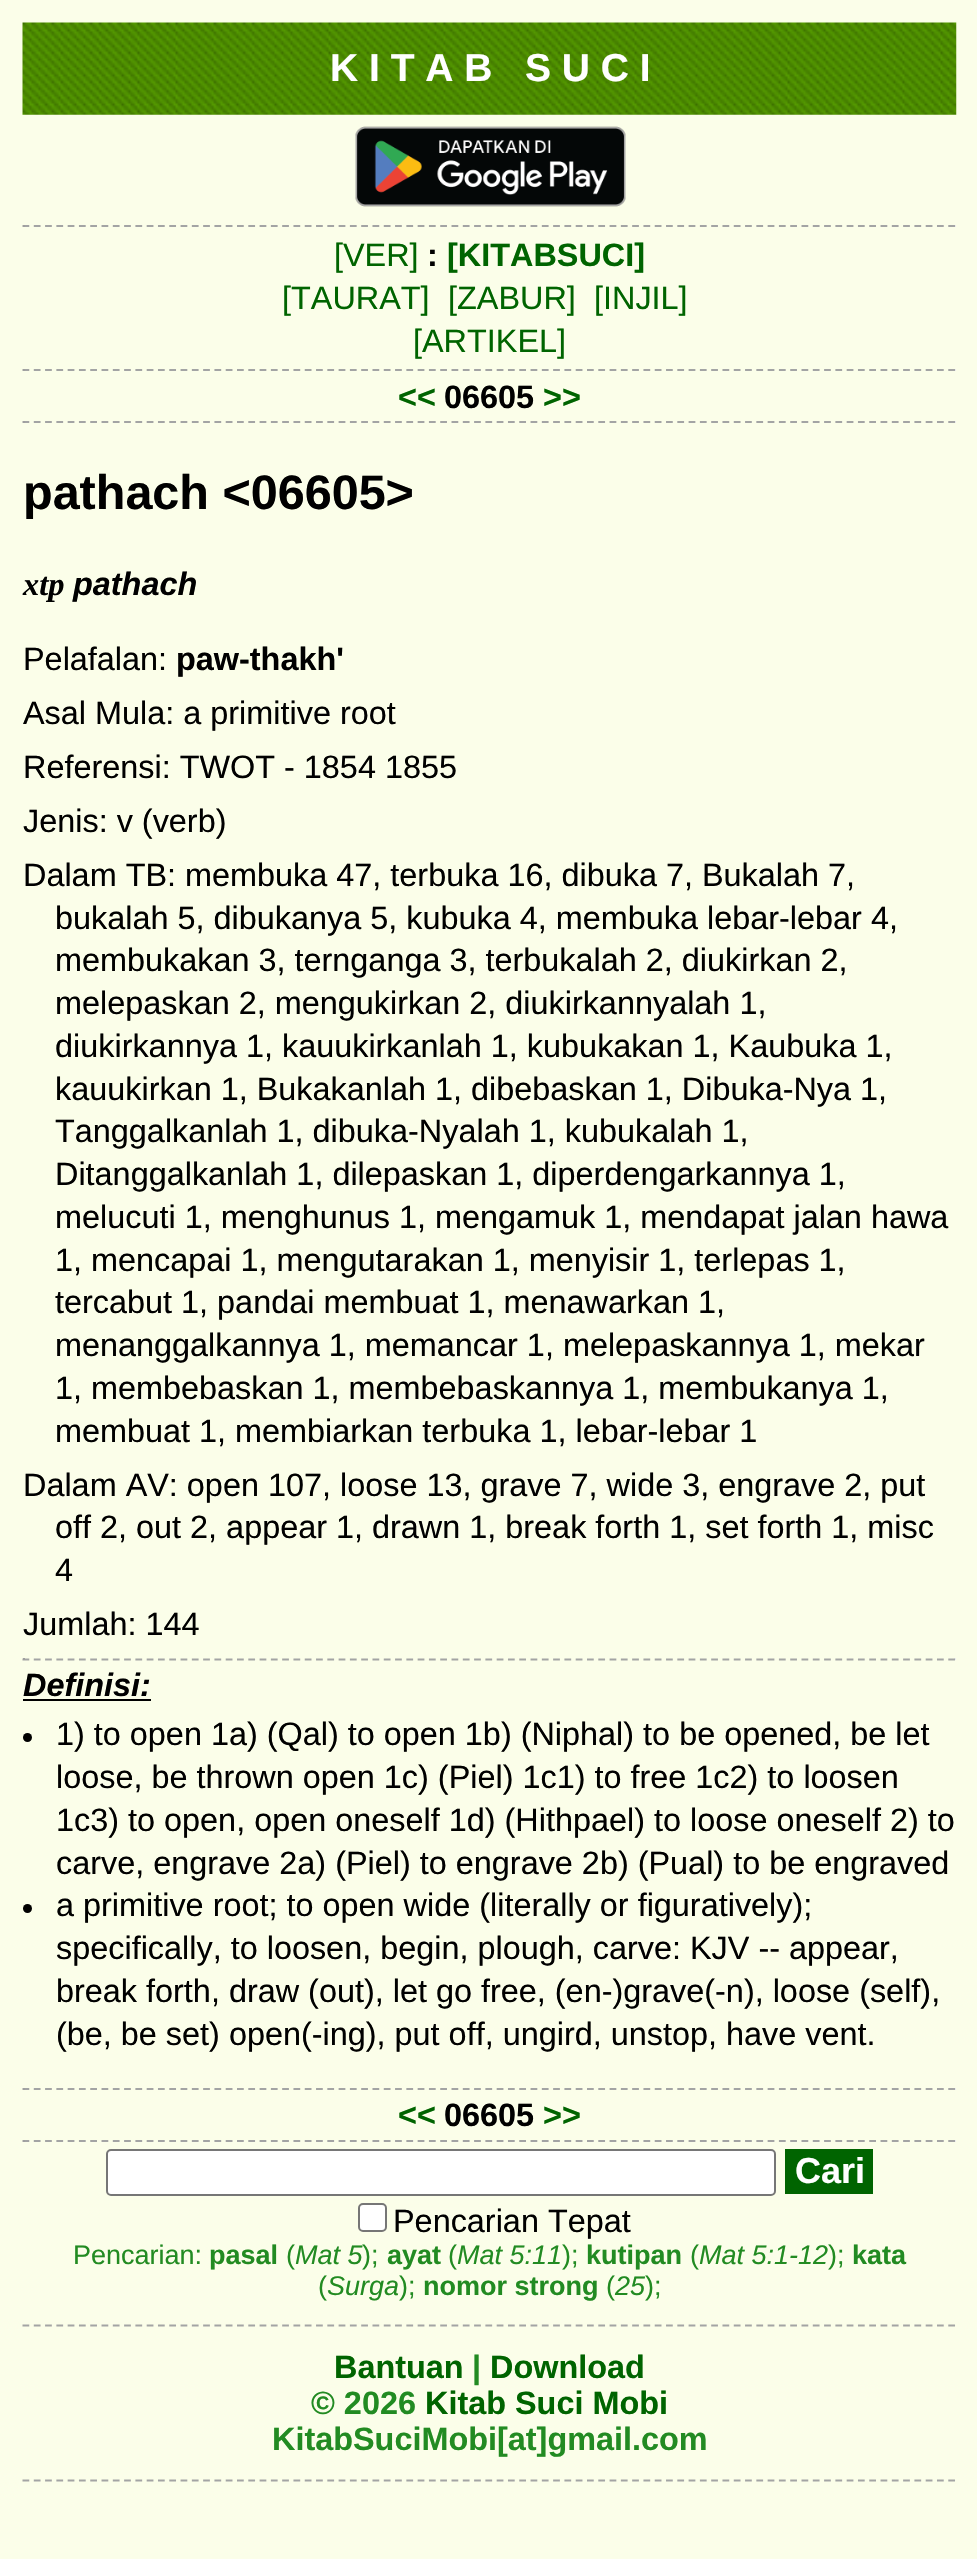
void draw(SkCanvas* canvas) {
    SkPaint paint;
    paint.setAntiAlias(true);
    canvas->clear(0xFFFBFEE9);
    canvas->drawImageRect(SkImages::DeferredFromEncodedData(SkData::MakeFromFileName("img1.png")), SkRect::MakeXYWH(22, 22, 935, 93), SkSamplingOptions());
    SkFont font1(fontMgr->matchFamilyStyle("Liberation Sans", SkFontStyle::Bold()), 39);
    font1.setSubpixel(true);
    paint.setColor(0xFFFFFFFF);
    canvas->drawString("K I T A B   S U C I", 330, 81, font1, paint);
    canvas->drawImageRect(SkImages::DeferredFromEncodedData(SkData::MakeFromFileName("img2.png")), SkRect::MakeXYWH(355, 126, 271, 81), SkSamplingOptions());
    paint.setColor(0xFFEEEEEE);
    canvas->drawRect(SkRect::MakeXYWH(954, 225, 2, 2), paint);
    paint.setStyle(SkPaint::kStroke_Style);
    paint.setStrokeWidth(2.2f);
    paint.setColor(0xFFA3A4A4);
    paint.setPathEffect(SkDashPathEffect::Make({{6.75f, 4.54f}}, 0));
    canvas->drawPath(SkPathBuilder().moveTo(22.5f, 226).lineTo(956, 226).detach(), paint);
    paint.setPathEffect(nullptr);
    paint.setStyle(SkPaint::kFill_Style);
    paint.setColor(0xFF9F9F9F);
    canvas->drawRect(SkRect::MakeXYWH(23, 225, 2, 2), paint);
    SkFont font2(fontMgr->matchFamilyStyle("Liberation Sans", SkFontStyle::Normal()), 32.4f);
    font2.setSubpixel(true);
    paint.setColor(0xFF006400);
    canvas->drawString("[VER]", 334, 266, font2, paint);
    SkFont font3(fontMgr->matchFamilyStyle("Liberation Sans", SkFontStyle::Bold()), 32.4f);
    font3.setSubpixel(true);
    paint.setColor(0xFF000000);
    canvas->drawString(":", 427, 266, font3, paint);
    paint.setColor(0xFF006400);
    canvas->drawString("[KITABSUCI]", 447, 266, font3, paint);
    canvas->drawString("[TAURAT]", 282, 309, font2, paint);
    canvas->drawString("[ZABUR]", 448, 309, font2, paint);
    canvas->drawString("[INJIL]", 594, 309, font2, paint);
    canvas->drawString("[ARTIKEL]", 413, 352, font2, paint);
    paint.setColor(0xFFEEEEEE);
    canvas->drawRect(SkRect::MakeXYWH(954, 369, 2, 2), paint);
    paint.setStyle(SkPaint::kStroke_Style);
    paint.setColor(0xFFA3A4A4);
    paint.setPathEffect(SkDashPathEffect::Make({{6.75f, 4.54f}}, 0));
    canvas->drawPath(SkPathBuilder().moveTo(22.5f, 370).lineTo(956, 370).detach(), paint);
    paint.setPathEffect(nullptr);
    paint.setStyle(SkPaint::kFill_Style);
    paint.setColor(0xFF9F9F9F);
    canvas->drawRect(SkRect::MakeXYWH(23, 369, 2, 2), paint);
    paint.setColor(0xFF006400);
    canvas->drawString("<<", 398, 408, font3, paint);
    paint.setColor(0xFF000000);
    canvas->drawString("06605", 444, 408, font3, paint);
    paint.setColor(0xFF006400);
    canvas->drawString(">>", 543, 408, font3, paint);
    paint.setColor(0xFFEEEEEE);
    canvas->drawRect(SkRect::MakeXYWH(954, 421, 2, 2), paint);
    paint.setStyle(SkPaint::kStroke_Style);
    paint.setColor(0xFFA3A4A4);
    paint.setPathEffect(SkDashPathEffect::Make({{6.75f, 4.54f}}, 0));
    canvas->drawPath(SkPathBuilder().moveTo(22.5f, 422).lineTo(956, 422).detach(), paint);
    paint.setPathEffect(nullptr);
    paint.setStyle(SkPaint::kFill_Style);
    paint.setColor(0xFF9F9F9F);
    canvas->drawRect(SkRect::MakeXYWH(23, 421, 2, 2), paint);
    SkFont font4(fontMgr->matchFamilyStyle("Liberation Sans", SkFontStyle::Bold()), 48.5f);
    font4.setSubpixel(true);
    paint.setColor(0xFF000000);
    canvas->drawString("pathach <06605>", 23, 509, font4, paint);
    SkFont font5(fontMgr->matchFamilyStyle("Liberation Serif", SkFontStyle::BoldItalic()), 32.4f);
    font5.setSubpixel(true);
    canvas->drawString("xtp", 23, 595, font5, paint);
    SkFont font6(fontMgr->matchFamilyStyle("Liberation Sans", SkFontStyle::BoldItalic()), 32.4f);
    font6.setSubpixel(true);
    canvas->drawString("pathach", 73, 595, font6, paint);
    canvas->drawString("Pelafalan:", 23, 670, font2, paint);
    canvas->drawString("paw-thakh'", 176, 670, font3, paint);
    canvas->drawString("Asal Mula: a primitive root", 23, 724, font2, paint);
    canvas->drawString("Referensi: TWOT - 1854 1855", 23, 778, font2, paint);
    canvas->drawString("Jenis: v (verb)", 23, 832, font2, paint);
    canvas->drawString("Dalam TB: membuka 47, terbuka 16, dibuka 7, Bukalah 7,", 23, 886, font2, paint);
    canvas->drawString("bukalah 5, dibukanya 5, kubuka 4, membuka lebar-lebar 4,", 55, 929, font2, paint);
    canvas->drawString("membukakan 3, ternganga 3, terbukalah 2, diukirkan 2,", 55, 971, font2, paint);
    canvas->drawString("melepaskan 2, mengukirkan 2, diukirkannyalah 1,", 55, 1014, font2, paint);
    canvas->drawString("diukirkannya 1, kauukirkanlah 1, kubukakan 1, Kaubuka 1,", 55, 1057, font2, paint);
    canvas->drawString("kauukirkan 1, Bukakanlah 1, dibebaskan 1, Dibuka-Nya 1,", 55, 1100, font2, paint);
    canvas->drawString("Tanggalkanlah 1, dibuka-Nyalah 1, kubukalah 1,", 55, 1142, font2, paint);
    canvas->drawString("Ditanggalkanlah 1, dilepaskan 1, diperdengarkannya 1,", 55, 1185, font2, paint);
    canvas->drawString("melucuti 1, menghunus 1, mengamuk 1, mendapat jalan hawa", 55, 1228, font2, paint);
    canvas->drawString("1, mencapai 1, mengutarakan 1, menyisir 1, terlepas 1,", 55, 1271, font2, paint);
    canvas->drawString("tercabut 1, pandai membuat 1, menawarkan 1,", 55, 1313, font2, paint);
    canvas->drawString("menanggalkannya 1, memancar 1, melepaskannya 1, mekar", 55, 1356, font2, paint);
    canvas->drawString("1, membebaskan 1, membebaskannya 1, membukanya 1,", 55, 1399, font2, paint);
    canvas->drawString("membuat 1, membiarkan terbuka 1, lebar-lebar 1", 55, 1442, font2, paint);
    canvas->drawString("Dalam AV: open 107, loose 13, grave 7, wide 3, engrave 2, put", 23, 1496, font2, paint);
    canvas->drawString("off 2, out 2, appear 1, drawn 1, break forth 1, set forth 1, misc", 55, 1538, font2, paint);
    canvas->drawString("4", 55, 1581, font2, paint);
    canvas->drawString("Jumlah: 144", 23, 1635, font2, paint);
    paint.setColor(0xFFEEEEEE);
    canvas->drawRect(SkRect::MakeXYWH(954, 1658, 2, 2), paint);
    paint.setStyle(SkPaint::kStroke_Style);
    paint.setColor(0xFFA3A4A4);
    paint.setPathEffect(SkDashPathEffect::Make({{6.75f, 4.54f}}, 0));
    canvas->drawPath(SkPathBuilder().moveTo(22.5f, 1659.5f).lineTo(956, 1659.5f).detach(), paint);
    paint.setPathEffect(nullptr);
    paint.setStyle(SkPaint::kFill_Style);
    paint.setColor(0xFF9F9F9F);
    canvas->drawRect(SkRect::MakeXYWH(23, 1658, 2, 2), paint);
    paint.setColor(0xFF000000);
    canvas->drawString("Definisi:", 23, 1696, font6, paint);
    canvas->drawRect(SkRect::MakeXYWH(23, 1699, 128, 2), paint);
    canvas->drawCircle(27.5f, 1737.5f, 4.5f, paint);
    canvas->drawString("1) to open 1a) (Qal) to open 1b) (Niphal) to be opened, be let", 56, 1745, font2, paint);
    canvas->drawString("loose, be thrown open 1c) (Piel) 1c1) to free 1c2) to loosen", 56, 1788, font2, paint);
    canvas->drawString("1c3) to open, open oneself 1d) (Hithpael) to loose oneself 2) to", 56, 1831, font2, paint);
    canvas->drawString("carve, engrave 2a) (Piel) to engrave 2b) (Pual) to be engraved", 56, 1874, font2, paint);
    canvas->drawCircle(27.5f, 1908.5f, 4.5f, paint);
    canvas->drawString("a primitive root; to open wide (literally or figuratively);", 56, 1916, font2, paint);
    canvas->drawString("specifically, to loosen, begin, plough, carve: KJV -- appear,", 56, 1959, font2, paint);
    canvas->drawString("break forth, draw (out), let go free, (en-)grave(-n), loose (self),", 56, 2002, font2, paint);
    canvas->drawString("(be, be set) open(-ing), put off, ungird, unstop, have vent.", 56, 2045, font2, paint);
    paint.setColor(0xFFEEEEEE);
    canvas->drawRect(SkRect::MakeXYWH(954, 2088, 2, 2), paint);
    paint.setStyle(SkPaint::kStroke_Style);
    paint.setColor(0xFFA3A4A4);
    paint.setPathEffect(SkDashPathEffect::Make({{6.75f, 4.54f}}, 0));
    canvas->drawPath(SkPathBuilder().moveTo(22.5f, 2089).lineTo(956, 2089).detach(), paint);
    paint.setPathEffect(nullptr);
    paint.setStyle(SkPaint::kFill_Style);
    paint.setColor(0xFF9F9F9F);
    canvas->drawRect(SkRect::MakeXYWH(23, 2088, 2, 2), paint);
    paint.setColor(0xFF006400);
    canvas->drawString("<<", 398, 2126, font3, paint);
    paint.setColor(0xFF000000);
    canvas->drawString("06605", 444, 2126, font3, paint);
    paint.setColor(0xFF006400);
    canvas->drawString(">>", 543, 2126, font3, paint);
    paint.setColor(0xFFEEEEEE);
    canvas->drawRect(SkRect::MakeXYWH(954, 2140, 2, 2), paint);
    paint.setStyle(SkPaint::kStroke_Style);
    paint.setColor(0xFFA3A4A4);
    paint.setPathEffect(SkDashPathEffect::Make({{6.75f, 4.54f}}, 0));
    canvas->drawPath(SkPathBuilder().moveTo(22.5f, 2141).lineTo(956, 2141).detach(), paint);
    paint.setPathEffect(nullptr);
    paint.setStyle(SkPaint::kFill_Style);
    paint.setColor(0xFF9F9F9F);
    canvas->drawRect(SkRect::MakeXYWH(23, 2140, 2, 2), paint);
    paint.setColor(0xFFFFFFFF);
    canvas->drawRoundRect(SkRect::MakeXYWH(107, 2150, 668, 45), 4, 4, paint);
    paint.setStyle(SkPaint::kStroke_Style);
    paint.setStrokeWidth(2);
    paint.setColor(0xFF767676);
    canvas->drawRoundRect(SkRect::MakeXYWH(107, 2150, 668, 45), 4, 4, paint);
    paint.setStyle(SkPaint::kFill_Style);
    paint.setColor(0xFF006400);
    canvas->drawRect(SkRect::MakeXYWH(785, 2149, 88, 45), paint);
    SkFont font7(fontMgr->matchFamilyStyle("Liberation Sans", SkFontStyle::Bold()), 36);
    font7.setSubpixel(true);
    paint.setColor(0xFFFFFFFF);
    canvas->drawString("Cari", 795, 2183, font7, paint);
    canvas->drawRoundRect(SkRect::MakeXYWH(359, 2204, 27, 27), 4, 4, paint);
    paint.setStyle(SkPaint::kStroke_Style);
    paint.setColor(0xFF767676);
    canvas->drawRoundRect(SkRect::MakeXYWH(359, 2204, 27, 27), 4, 4, paint);
    paint.setStyle(SkPaint::kFill_Style);
    paint.setColor(0xFF000000);
    canvas->drawString("Pencarian Tepat", 393, 2232, font2, paint);
    SkFont font8(fontMgr->matchFamilyStyle("Liberation Sans", SkFontStyle::Normal()), 27);
    font8.setSubpixel(true);
    paint.setColor(0xFF228B22);
    canvas->drawString("Pencarian:", 73, 2264, font8, paint);
    SkFont font9(fontMgr->matchFamilyStyle("Liberation Sans", SkFontStyle::Bold()), 27);
    font9.setSubpixel(true);
    canvas->drawString("pasal", 209, 2264, font9, paint);
    canvas->drawString("(", 286, 2264, font8, paint);
    SkFont font10(fontMgr->matchFamilyStyle("Liberation Sans", SkFontStyle::Italic()), 27);
    font10.setSubpixel(true);
    canvas->drawString("Mat 5", 295, 2264, font10, paint);
    canvas->drawString(");", 362, 2264, font8, paint);
    canvas->drawString("ayat", 387, 2264, font9, paint);
    canvas->drawString("(", 448, 2264, font8, paint);
    canvas->drawString("Mat 5:11", 457, 2264, font10, paint);
    canvas->drawString(");", 562, 2264, font8, paint);
    canvas->drawString("kutipan", 586, 2264, font9, paint);
    canvas->drawString("(", 690, 2264, font8, paint);
    canvas->drawString("Mat 5:1-12", 699, 2264, font10, paint);
    canvas->drawString(");", 828, 2264, font8, paint);
    canvas->drawString("kata", 852, 2264, font9, paint);
    canvas->drawString("(", 318, 2295, font8, paint);
    canvas->drawString("Surga", 327, 2295, font10, paint);
    canvas->drawString(");", 399, 2295, font8, paint);
    canvas->drawString("nomor strong", 423, 2295, font9, paint);
    canvas->drawString("(", 606, 2295, font8, paint);
    canvas->drawString("25", 615, 2295, font10, paint);
    canvas->drawString(");", 645, 2295, font8, paint);
    paint.setStyle(SkPaint::kStroke_Style);
    paint.setStrokeWidth(2.2f);
    paint.setColor(0xFFA3A4A4);
    paint.setPathEffect(SkDashPathEffect::Make({{6.75f, 4.54f}}, 0));
    canvas->drawPath(SkPathBuilder().moveTo(22.5f, 2325.5f).lineTo(956, 2325.5f).detach(), paint);
    paint.setPathEffect(nullptr);
    paint.setPathEffect(SkDashPathEffect::Make({{6.75f, 4.54f}}, 0));
    canvas->drawPath(SkPathBuilder().moveTo(22.5f, 2480.5f).lineTo(956, 2480.5f).detach(), paint);
    paint.setPathEffect(nullptr);
    paint.setStyle(SkPaint::kFill_Style);
    paint.setColor(0xFF006400);
    canvas->drawString("Bantuan", 334, 2378, font3, paint);
    paint.setColor(0xFF228B22);
    canvas->drawString("|", 472, 2378, font3, paint);
    paint.setColor(0xFF006400);
    canvas->drawString("Download", 490, 2378, font3, paint);
    paint.setColor(0xFF228B22);
    canvas->drawString("© 2026", 311, 2414, font3, paint);
    paint.setColor(0xFF006400);
    canvas->drawString("Kitab Suci Mobi", 425, 2414, font3, paint);
    paint.setColor(0xFF228B22);
    canvas->drawString("KitabSuciMobi[at]gmail.com", 272, 2450, font3, paint);
}
